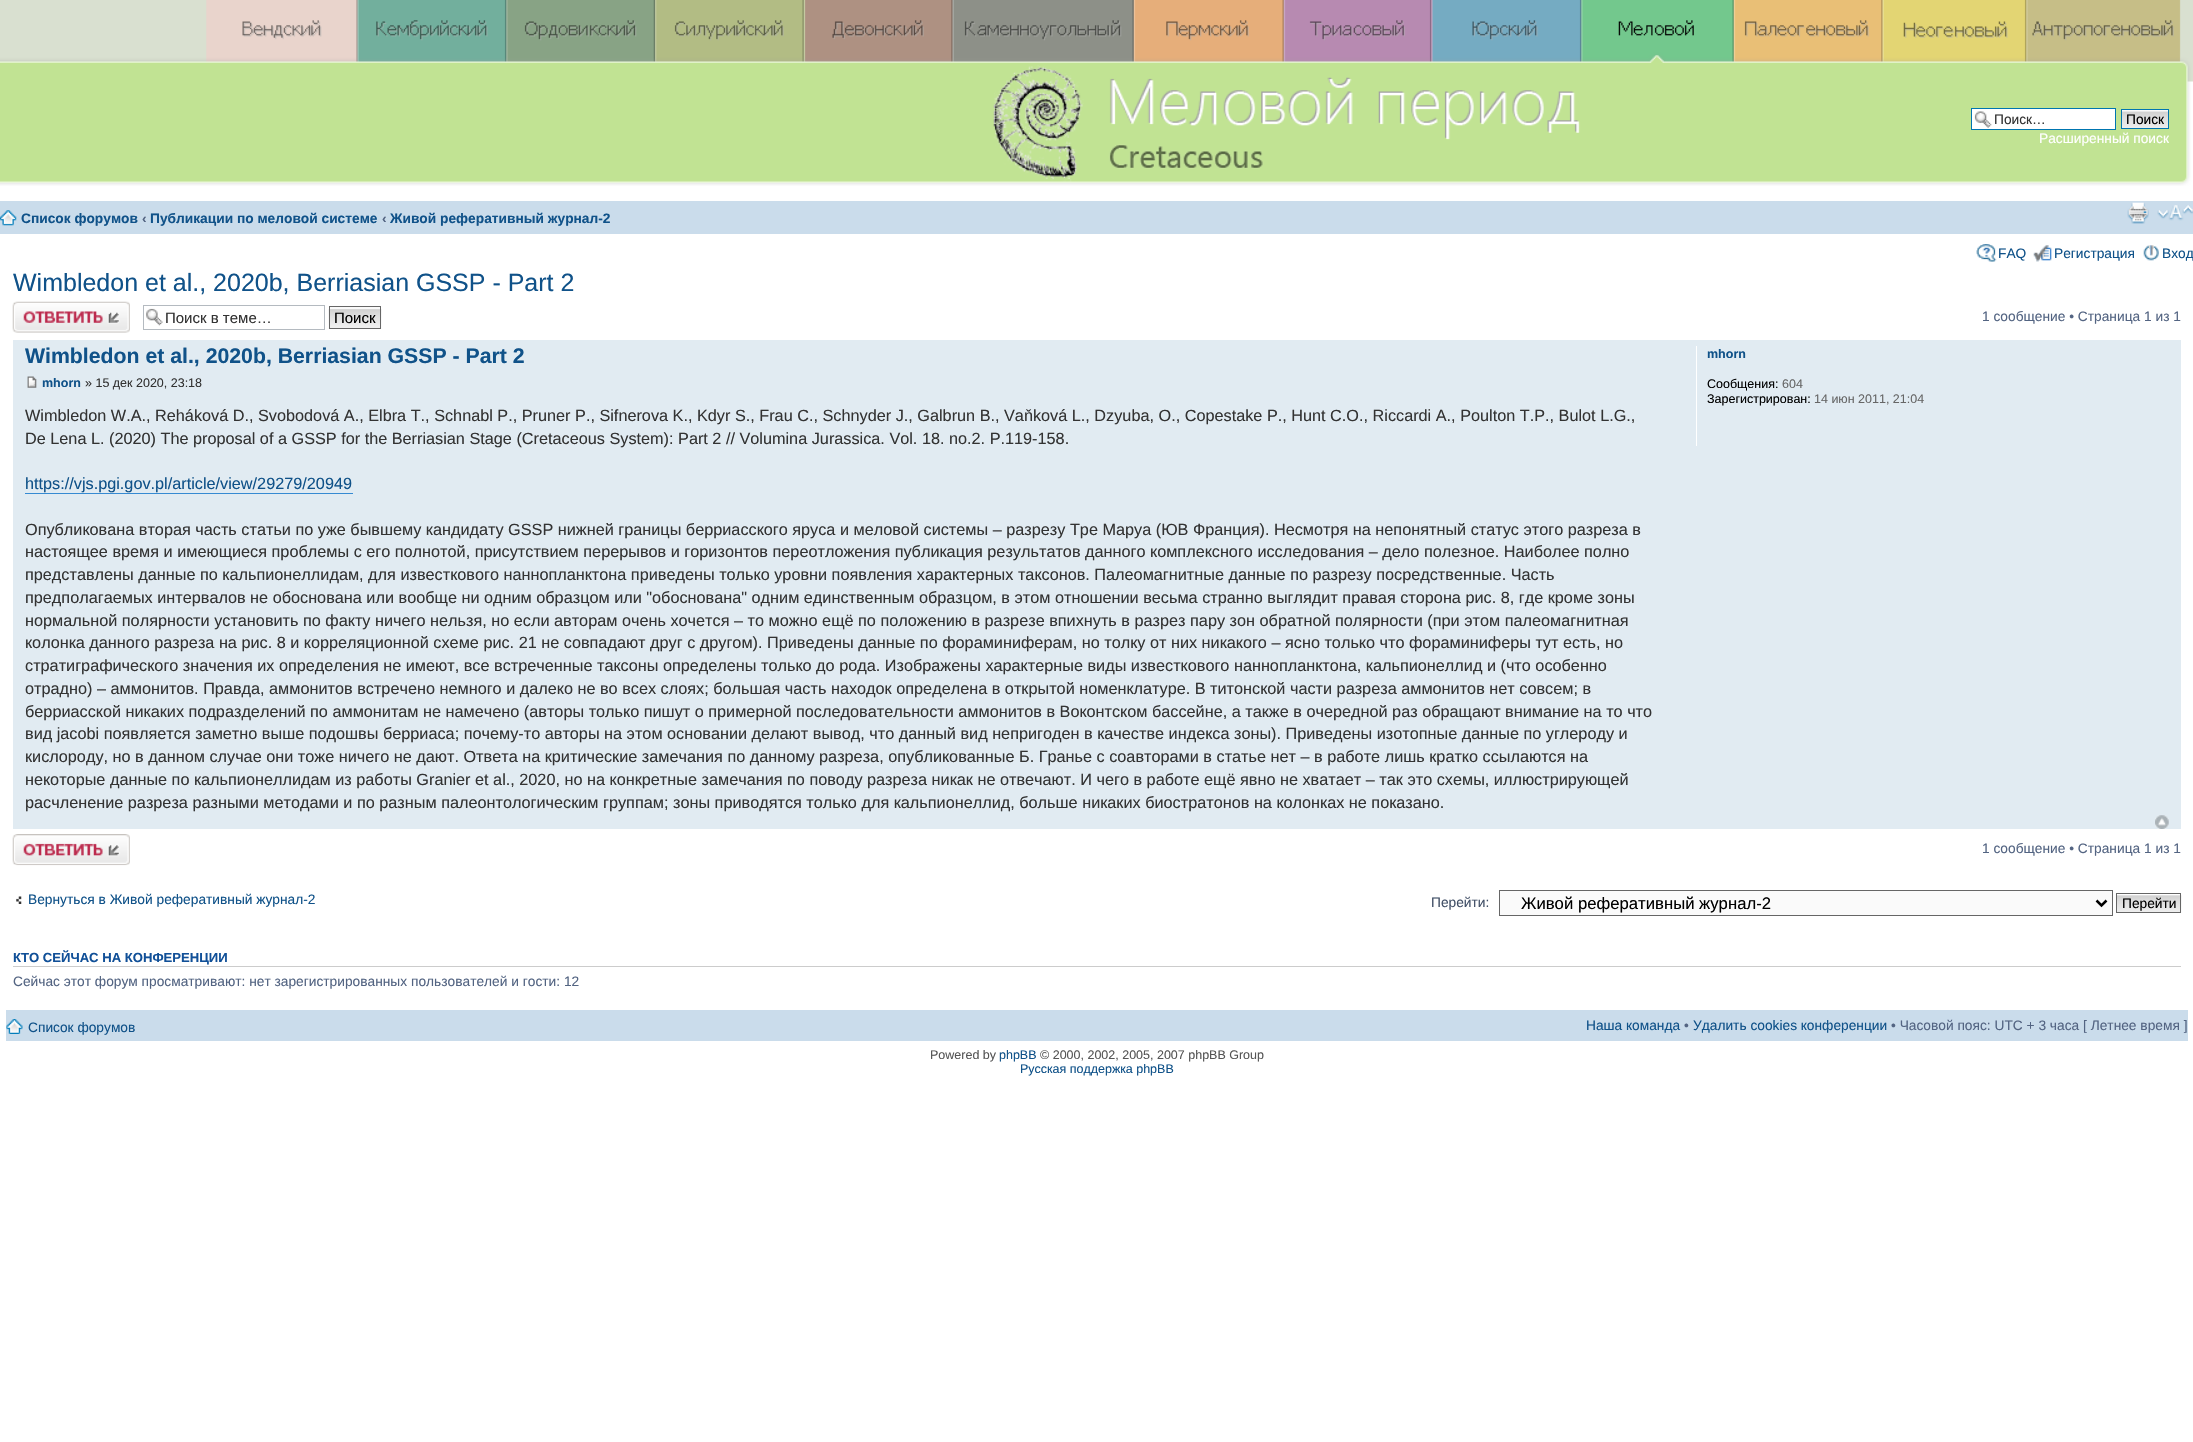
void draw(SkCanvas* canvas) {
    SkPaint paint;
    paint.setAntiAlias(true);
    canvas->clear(0xFFFFFFFF);
    canvas->drawImageRect(SkImages::DeferredFromEncodedData(SkData::MakeFromFileName("img1.png")), SkRect::MakeXYWH(0, 0, 2193, 186), SkSamplingOptions());
    paint.setColor(0xFFFFFFFF);
    canvas->drawRect(SkRect::MakeXYWH(1972, 109, 143, 20), paint);
    canvas->drawImageRect(SkImages::DeferredFromEncodedData(SkData::MakeFromFileName("img2.png")), SkRect::MakeXYWH(1974, 111, 18, 17), SkSamplingOptions());
    paint.setStyle(SkPaint::kStroke_Style);
    paint.setStrokeWidth(1);
    paint.setColor(0xFF0075B0);
    canvas->drawRect(SkRect::MakeXYWH(1971.5f, 108.5f, 144, 21), paint);
    SkFont font1(fontMgr->matchFamilyStyle("Liberation Sans", SkFontStyle::Normal()), 13.75f);
    font1.setSubpixel(true);
    paint.setStyle(SkPaint::kFill_Style);
    paint.setColor(0xFF333333);
    canvas->drawString("Поиск…", 1994, 124, font1, paint);
    paint.setColor(0xFFFAFAFA);
    canvas->drawRect(SkRect::MakeXYWH(2122, 110, 46, 1), paint);
    canvas->drawImageRect(SkImages::DeferredFromEncodedData(SkData::MakeFromFileName("img3.png")), SkRect::MakeXYWH(2122, 111, 46, 17), SkSamplingOptions());
    paint.setStyle(SkPaint::kStroke_Style);
    paint.setColor(0xFF0075B0);
    canvas->drawRect(SkRect::MakeXYWH(2121.5f, 109.5f, 47, 19), paint);
    paint.setStyle(SkPaint::kFill_Style);
    paint.setColor(0xFF000000);
    canvas->drawString("Поиск", 2126, 124, font1, paint);
    paint.setColor(0xFFFFFFFF);
    canvas->drawString("Расширенный поиск", 2039, 143, font1, paint);
    paint.setColor(0xFFCADCEB);
    canvas->drawRect(SkRect::MakeXYWH(0, 201, 2193, 33), paint);
    canvas->drawImageRect(SkImages::DeferredFromEncodedData(SkData::MakeFromFileName("img4.png")), SkRect::MakeXYWH(0, 210, 17, 16), SkSamplingOptions());
    SkFont font2(fontMgr->matchFamilyStyle("Liberation Sans", SkFontStyle::Bold()), 13.75f);
    font2.setSubpixel(true);
    paint.setColor(0xFF105289);
    canvas->drawString("Список форумов", 21, 223, font2, paint);
    paint.setColor(0xFF536482);
    canvas->drawString("‹", 142, 223, font2, paint);
    paint.setColor(0xFF105289);
    canvas->drawString("Публикации по меловой системе", 150, 223, font2, paint);
    paint.setColor(0xFF536482);
    canvas->drawString("‹", 382, 223, font2, paint);
    paint.setColor(0xFF105289);
    canvas->drawString("Живой реферативный журнал-2", 390, 223, font2, paint);
    canvas->drawImageRect(SkImages::DeferredFromEncodedData(SkData::MakeFromFileName("img5.png")), SkRect::MakeXYWH(2127, 202, 22, 22), SkSamplingOptions());
    canvas->drawImageRect(SkImages::DeferredFromEncodedData(SkData::MakeFromFileName("img6.png")), SkRect::MakeXYWH(2157, 205, 36, 16), SkSamplingOptions());
    canvas->drawImageRect(SkImages::DeferredFromEncodedData(SkData::MakeFromFileName("img7.png")), SkRect::MakeXYWH(1976, 244, 21, 18), SkSamplingOptions());
    canvas->drawString("FAQ", 1998, 258, font1, paint);
    canvas->drawImageRect(SkImages::DeferredFromEncodedData(SkData::MakeFromFileName("img8.png")), SkRect::MakeXYWH(2033, 245, 19, 17), SkSamplingOptions());
    canvas->drawString("Регистрация", 2054, 258, font1, paint);
    canvas->drawImageRect(SkImages::DeferredFromEncodedData(SkData::MakeFromFileName("img9.png")), SkRect::MakeXYWH(2143, 245, 16, 16), SkSamplingOptions());
    canvas->drawString("Вход", 2162, 258, font1, paint);
    SkFont font3(fontMgr->matchFamilyStyle("Liberation Sans", SkFontStyle::Normal()), 25);
    font3.setSubpixel(true);
    canvas->drawString("Wimbledon et al., 2020b, Berriasian GSSP - Part 2", 13, 291, font3, paint);
    canvas->drawImageRect(SkImages::DeferredFromEncodedData(SkData::MakeFromFileName("img10.png")), SkRect::MakeXYWH(12, 301, 118, 32), SkSamplingOptions());
    canvas->drawImageRect(SkImages::DeferredFromEncodedData(SkData::MakeFromFileName("img11.png")), SkRect::MakeXYWH(146, 308, 17, 18), SkSamplingOptions());
    paint.setStyle(SkPaint::kStroke_Style);
    paint.setColor(0xFFB4BAC0);
    canvas->drawRect(SkRect::MakeXYWH(143.5f, 305.5f, 181, 24), paint);
    SkFont font4(fontMgr->matchFamilyStyle("Liberation Sans", SkFontStyle::Normal()), 15);
    font4.setSubpixel(true);
    paint.setStyle(SkPaint::kFill_Style);
    paint.setColor(0xFF333333);
    canvas->drawString("Поиск в теме…", 165, 323, font4, paint);
    paint.setColor(0xFFFAFAFA);
    canvas->drawRect(SkRect::MakeXYWH(330, 307, 50, 2), paint);
    canvas->drawImageRect(SkImages::DeferredFromEncodedData(SkData::MakeFromFileName("img12.png")), SkRect::MakeXYWH(328, 309, 54, 20), SkSamplingOptions());
    paint.setStyle(SkPaint::kStroke_Style);
    paint.setColor(0xFF666666);
    canvas->drawRect(SkRect::MakeXYWH(329.5f, 306.5f, 51, 22), paint);
    paint.setStyle(SkPaint::kFill_Style);
    paint.setColor(0xFF000000);
    canvas->drawString("Поиск", 334, 323, font4, paint);
    paint.setColor(0xFF536482);
    canvas->drawString("1 сообщение • Страница 1 из 1", 1982, 321, font1, paint);
    paint.setColor(0xFFE1EBF2);
    canvas->drawRect(SkRect::MakeXYWH(13, 340, 2168, 489), paint);
    SkFont font5(fontMgr->matchFamilyStyle("Liberation Sans", SkFontStyle::Bold()), 21.25f);
    font5.setSubpixel(true);
    paint.setColor(0xFF105289);
    canvas->drawString("Wimbledon et al., 2020b, Berriasian GSSP - Part 2", 25, 363, font5, paint);
    canvas->drawImageRect(SkImages::DeferredFromEncodedData(SkData::MakeFromFileName("img13.png")), SkRect::MakeXYWH(27, 376, 10, 12), SkSamplingOptions());
    SkFont font6(fontMgr->matchFamilyStyle("Liberation Sans", SkFontStyle::Bold()), 12.5f);
    font6.setSubpixel(true);
    canvas->drawString("mhorn", 42, 387, font6, paint);
    SkFont font7(fontMgr->matchFamilyStyle("Liberation Sans", SkFontStyle::Normal()), 12.5f);
    font7.setSubpixel(true);
    paint.setColor(0xFF333333);
    canvas->drawString("» 15 дек 2020, 23:18", 85, 387, font7, paint);
    SkFont font8(fontMgr->matchFamilyStyle("Liberation Sans", SkFontStyle::Normal()), 16.25f);
    font8.setSubpixel(true);
    canvas->drawString("Wimbledon W.A., Reháková D., Svobodová A., Elbra T., Schnabl P., Pruner P., Sifnerova K., Kdyr S., Frau C., Schnyder J., Galbrun B., Vaňková L., Dzyuba, O., Copestake P., Hunt C.O., Riccardi A., Poulton T.P., Bulot L.G.,", 25, 421, font8, paint);
    canvas->drawString("De Lena L. (2020) The proposal of a GSSP for the Berriasian Stage (Cretaceous System): Part 2 // Volumina Jurassica. Vol. 18. no.2. P.119-158.", 25, 444, font8, paint);
    paint.setColor(0xFF105289);
    canvas->drawString("https://vjs.pgi.gov.pl/article/view/29279/20949", 25, 489, font8, paint);
    paint.setColor(0xFF368AD2);
    canvas->drawRect(SkRect::MakeXYWH(25, 493, 328, 1), paint);
    paint.setColor(0xFF333333);
    canvas->drawString("Опубликована вторая часть статьи по уже бывшему кандидату GSSP нижней границы берриасского яруса и меловой системы – разрезу Тре Маруа (ЮВ Франция). Несмотря на непонятный статус этого разреза в", 25, 535, font8, paint);
    canvas->drawString("настоящее время и имеющиеся проблемы с его полнотой, присутствием перерывов и горизонтов переотложения публикация результатов данного комплексного исследования – дело полезное. Наиболее полно", 25, 557, font8, paint);
    canvas->drawString("представлены данные по кальпионеллидам, для известкового наннопланктона приведены только уровни появления характерных таксонов. Палеомагнитные данные по разрезу посредственные. Часть", 25, 580, font8, paint);
    canvas->drawString("предполагаемых интервалов не обоснована или вообще ни одним образцом или \"обоснована\" одним единственным образцом, в этом отношении весьма странно выглядит правая сторона рис. 8, где кроме зоны", 25, 603, font8, paint);
    canvas->drawString("нормальной полярности установить по факту ничего нельзя, но если авторам очень хочется – то можно ещё по положению в разрезе впихнуть в разрез пару зон обратной полярности (при этом палеомагнитная", 25, 626, font8, paint);
    canvas->drawString("колонка данного разреза на рис. 8 и корреляционной схеме рис. 21 не совпадают друг с другом). Приведены данные по фораминиферам, но толку от них никакого – ясно только что фораминиферы тут есть, но", 25, 648, font8, paint);
    canvas->drawString("стратиграфического значения их определения не имеют, все встреченные таксоны определены только до рода. Изображены характерные виды известкового наннопланктона, кальпионеллид и (что особенно", 25, 671, font8, paint);
    canvas->drawString("отрадно) – аммонитов. Правда, аммонитов встречено немного и далеко не во всех слоях; большая часть находок определена в открытой номенклатуре. В титонской части разреза аммонитов нет совсем; в", 25, 694, font8, paint);
    canvas->drawString("берриасской никаких подразделений по аммонитам не намечено (авторы только пишут о примерной последовательности аммонитов в Воконтском бассейне, а также в очередной раз обращают внимание на то что", 25, 717, font8, paint);
    canvas->drawString("вид jacobi появляется заметно выше подошвы берриаса; почему-то авторы на этом основании делают вывод, что данный вид непригоден в качестве индекса зоны). Приведены изотопные данные по углероду и", 25, 739, font8, paint);
    canvas->drawString("кислороду, но в данном случае они тоже ничего не дают. Ответа на критические замечания по данному разреза, опубликованные Б. Гранье с соавторами в статье нет – в работе лишь кратко ссылаются на", 25, 762, font8, paint);
    canvas->drawString("некоторые данные по кальпионеллидам из работы Granier et al., 2020, но на конкретные замечания по поводу разреза никак не отвечают. И чего в работе ещё явно не хватает – так это схемы, иллюстрирующей", 25, 785, font8, paint);
    canvas->drawString("расчленение разреза разными методами и по разным палеонтологическим группам; зоны приводятся только для кальпионеллид, больше никаких биостратонов на колонках не показано.", 25, 808, font8, paint);
    paint.setColor(0xFFFFFFFF);
    canvas->drawRect(SkRect::MakeXYWH(1696, 346, 1, 100), paint);
    paint.setColor(0xFF105289);
    canvas->drawString("mhorn", 1707, 358, font6, paint);
    paint.setColor(0xFF000000);
    canvas->drawString("Сообщения:", 1707, 388, font7, paint);
    paint.setColor(0xFF666666);
    canvas->drawString("604", 1782, 388, font7, paint);
    paint.setColor(0xFF000000);
    canvas->drawString("Зарегистрирован:", 1707, 403, font7, paint);
    paint.setColor(0xFF666666);
    canvas->drawString("14 июн 2011, 21:04", 1814, 403, font7, paint);
    canvas->drawImageRect(SkImages::DeferredFromEncodedData(SkData::MakeFromFileName("img14.png")), SkRect::MakeXYWH(2155, 815, 14, 14), SkSamplingOptions());
    canvas->drawImageRect(SkImages::DeferredFromEncodedData(SkData::MakeFromFileName("img15.png")), SkRect::MakeXYWH(12, 834, 118, 32), SkSamplingOptions());
    paint.setColor(0xFF536482);
    canvas->drawString("1 сообщение • Страница 1 из 1", 1982, 853, font1, paint);
    canvas->drawImageRect(SkImages::DeferredFromEncodedData(SkData::MakeFromFileName("img16.png")), SkRect::MakeXYWH(16, 896, 6, 8), SkSamplingOptions());
    paint.setColor(0xFF105289);
    canvas->drawString("Вернуться в Живой реферативный журнал-2", 28, 904, font1, paint);
    paint.setColor(0xFF425067);
    canvas->drawString("Перейти:", 1431, 907, font1, paint);
    paint.setColor(0xFFFAFAFA);
    canvas->drawRect(SkRect::MakeXYWH(1499.5f, 890.5f, 613, 25), paint);
    paint.setStyle(SkPaint::kStroke_Style);
    paint.setColor(0xFF666666);
    canvas->drawRect(SkRect::MakeXYWH(1499.5f, 890.5f, 613, 25), paint);
    paint.setStrokeWidth(2.5f);
    paint.setColor(0xFF000000);
    canvas->drawPath(SkPathBuilder().moveTo(2096.5f, 900.5f).lineTo(2101.5f, 905.5f).lineTo(2106.5f, 900.5f).detach(), paint);
    SkFont font9(fontMgr->matchFamilyStyle("Liberation Sans", SkFontStyle::Normal()), 16.7f);
    font9.setSubpixel(true);
    paint.setStyle(SkPaint::kFill_Style);
    canvas->drawString("Живой реферативный журнал-2", 1521, 909, font9, paint);
    canvas->drawImageRect(SkImages::DeferredFromEncodedData(SkData::MakeFromFileName("img17.png")), SkRect::MakeXYWH(2117, 894, 65, 19), SkSamplingOptions());
    paint.setStyle(SkPaint::kStroke_Style);
    paint.setStrokeWidth(1);
    paint.setColor(0xFF666666);
    canvas->drawRect(SkRect::MakeXYWH(2116.5f, 893.5f, 64, 19), paint);
    paint.setStyle(SkPaint::kFill_Style);
    paint.setColor(0xFF000000);
    canvas->drawString("Перейти", 2122, 908, font1, paint);
    paint.setColor(0xFFCCCCCC);
    canvas->drawRect(SkRect::MakeXYWH(13, 966, 2168, 1), paint);
    SkFont font10(fontMgr->matchFamilyStyle("Liberation Sans", SkFontStyle::Bold()), 13.1f);
    font10.setSubpixel(true);
    paint.setColor(0xFF115098);
    canvas->drawString("КТО СЕЙЧАС НА КОНФЕРЕНЦИИ", 13, 962, font10, paint);
    paint.setColor(0xFF536482);
    canvas->drawString("Сейчас этот форум просматривают: нет зарегистрированных пользователей и гости: 12", 13, 986, font1, paint);
    paint.setColor(0xFFCADCEB);
    canvas->drawRect(SkRect::MakeXYWH(6, 1010, 2182, 31), paint);
    canvas->drawImageRect(SkImages::DeferredFromEncodedData(SkData::MakeFromFileName("img18.png")), SkRect::MakeXYWH(6, 1019, 17, 15), SkSamplingOptions());
    paint.setColor(0xFF105289);
    canvas->drawString("Список форумов", 28, 1032, font1, paint);
    canvas->drawString("Наша команда", 1586, 1030, font1, paint);
    paint.setColor(0xFF536482);
    canvas->drawString("•", 1684, 1030, font1, paint);
    paint.setColor(0xFF105289);
    canvas->drawString("Удалить cookies конференции", 1693, 1030, font1, paint);
    paint.setColor(0xFF536482);
    canvas->drawString("• Часовой пояс: UTC + 3 часа [ Летнее время ]", 1891, 1030, font1, paint);
    paint.setColor(0xFF555555);
    canvas->drawString("Powered by", 930, 1059, font7, paint);
    paint.setColor(0xFF105289);
    canvas->drawString("phpBB", 999, 1059, font7, paint);
    paint.setColor(0xFF555555);
    canvas->drawString("© 2000, 2002, 2005, 2007 phpBB Group", 1040, 1059, font7, paint);
    paint.setColor(0xFF105289);
    canvas->drawString("Русская поддержка phpBB", 1020, 1073, font7, paint);
}
